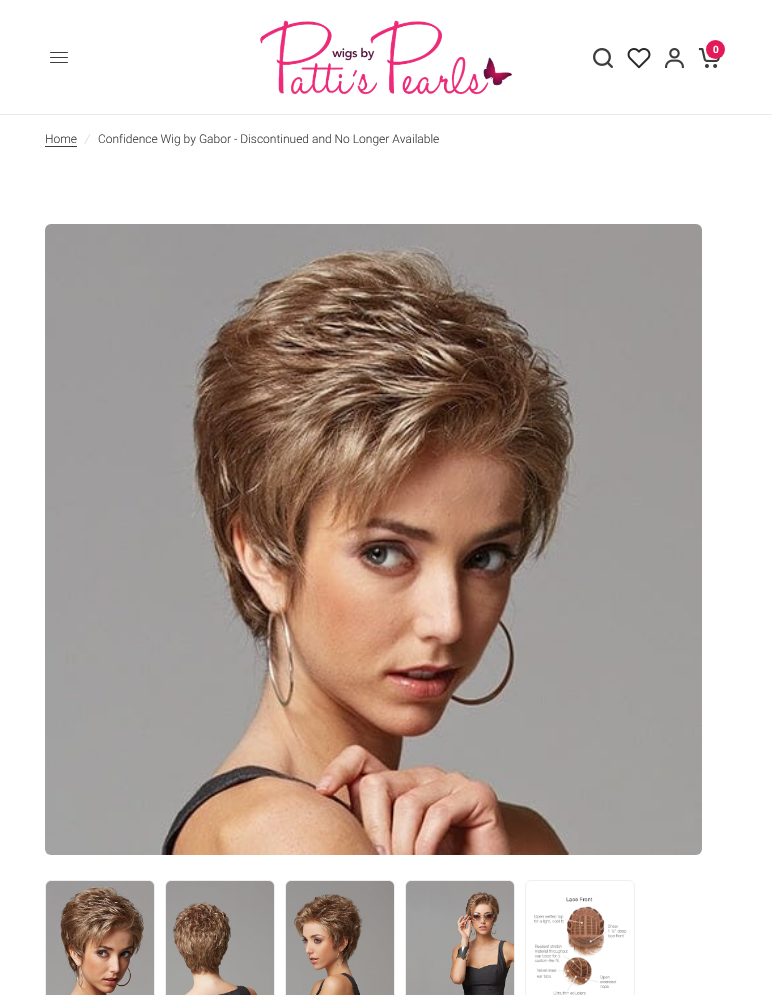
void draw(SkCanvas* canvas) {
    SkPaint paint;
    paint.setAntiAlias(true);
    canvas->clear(0xFFFFFFFF);
    canvas->drawImageRect(SkImages::DeferredFromEncodedData(SkData::MakeFromFileName("img1.png")), SkRect::MakeXYWH(260, 20, 252, 75), SkSamplingOptions());
    canvas->drawImageRect(SkImages::DeferredFromEncodedData(SkData::MakeFromFileName("img2.png")), SkRect::MakeXYWH(593, 48, 20, 20), SkSamplingOptions());
    canvas->drawImageRect(SkImages::DeferredFromEncodedData(SkData::MakeFromFileName("img3.png")), SkRect::MakeXYWH(627, 48, 24, 21), SkSamplingOptions());
    canvas->drawImageRect(SkImages::DeferredFromEncodedData(SkData::MakeFromFileName("img4.png")), SkRect::MakeXYWH(665, 48, 19, 20), SkSamplingOptions());
    canvas->drawImageRect(SkImages::DeferredFromEncodedData(SkData::MakeFromFileName("img5.png")), SkRect::MakeXYWH(698, 48, 22, 20), SkSamplingOptions());
    paint.setColor(0xFFE41958);
    canvas->drawCircle(715.5f, 49.5f, 9.5f, paint);
    SkFont font1(fontMgr->matchFamilyStyle("Roboto", SkFontStyle(600, SkFontStyle::kNormal_Width, SkFontStyle::kUpright_Slant)), 10);
    font1.setSubpixel(true);
    paint.setColor(0xFFFFFFFF);
    canvas->drawString("0", 713, 53, font1, paint);
    paint.setColor(0xFF3D3D3F);
    canvas->drawRoundRect(SkRect::MakeXYWH(50, 52, 18, 1), 0.5f, 0.5f, paint);
    canvas->drawRoundRect(SkRect::MakeXYWH(50, 57, 18, 1), 0.5f, 0.5f, paint);
    canvas->drawRoundRect(SkRect::MakeXYWH(50, 62, 18, 1), 0.5f, 0.5f, paint);
    paint.setColor(0xFFEDEAE6);
    canvas->drawRect(SkRect::MakeXYWH(0, 114, 772, 1), paint);
    SkFont font2(fontMgr->matchFamilyStyle("Roboto", SkFontStyle(300, SkFontStyle::kNormal_Width, SkFontStyle::kUpright_Slant)), 12);
    font2.setSubpixel(true);
    paint.setColor(0xFF3D3D3F);
    canvas->drawString("Home", 45, 143, font2, paint);
    canvas->drawRect(SkRect::MakeXYWH(45, 146, 32, 1), paint);
    SkFont font3(fontMgr->matchFamilyStyle("Roboto", SkFontStyle(300, SkFontStyle::kNormal_Width, SkFontStyle::kItalic_Slant)), 12);
    font3.setSubpixel(true);
    paint.setColor(0xFFD8D8D9);
    canvas->drawString("/", 85, 143, font3, paint);
    paint.setColor(0xFF3D3D3F);
    canvas->drawString("Confidence Wig by Gabor - Discontinued and No Longer Available", 98, 143, font2, paint);
    canvas->drawImageRect(SkImages::DeferredFromEncodedData(SkData::MakeFromFileName("img6.png")), SkRect::MakeXYWH(45, 224, 657, 631), SkSamplingOptions());
    paint.setStyle(SkPaint::kStroke_Style);
    paint.setStrokeWidth(1);
    paint.setColor(0xFFEEEEEE);
    canvas->drawRoundRect(SkRect::MakeXYWH(45.5f, 880.5f, 109, 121), 5.5f, 5.5f, paint);
    canvas->drawImageRect(SkImages::DeferredFromEncodedData(SkData::MakeFromFileName("img7.png")), SkRect::MakeXYWH(46, 881, 108, 114), SkSamplingOptions());
    canvas->drawRoundRect(SkRect::MakeXYWH(165.5f, 880.5f, 109, 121), 5.5f, 5.5f, paint);
    canvas->drawImageRect(SkImages::DeferredFromEncodedData(SkData::MakeFromFileName("img8.png")), SkRect::MakeXYWH(166, 881, 108, 114), SkSamplingOptions());
    canvas->drawRoundRect(SkRect::MakeXYWH(285.5f, 880.5f, 109, 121), 5.5f, 5.5f, paint);
    canvas->drawImageRect(SkImages::DeferredFromEncodedData(SkData::MakeFromFileName("img9.png")), SkRect::MakeXYWH(286, 881, 108, 114), SkSamplingOptions());
    canvas->drawRoundRect(SkRect::MakeXYWH(405.5f, 880.5f, 109, 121), 5.5f, 5.5f, paint);
    canvas->drawImageRect(SkImages::DeferredFromEncodedData(SkData::MakeFromFileName("img10.png")), SkRect::MakeXYWH(406, 881, 108, 114), SkSamplingOptions());
    canvas->drawRoundRect(SkRect::MakeXYWH(525.5f, 880.5f, 109, 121), 5.5f, 5.5f, paint);
    canvas->drawImageRect(SkImages::DeferredFromEncodedData(SkData::MakeFromFileName("img11.png")), SkRect::MakeXYWH(527, 882, 106, 113), SkSamplingOptions());
}
